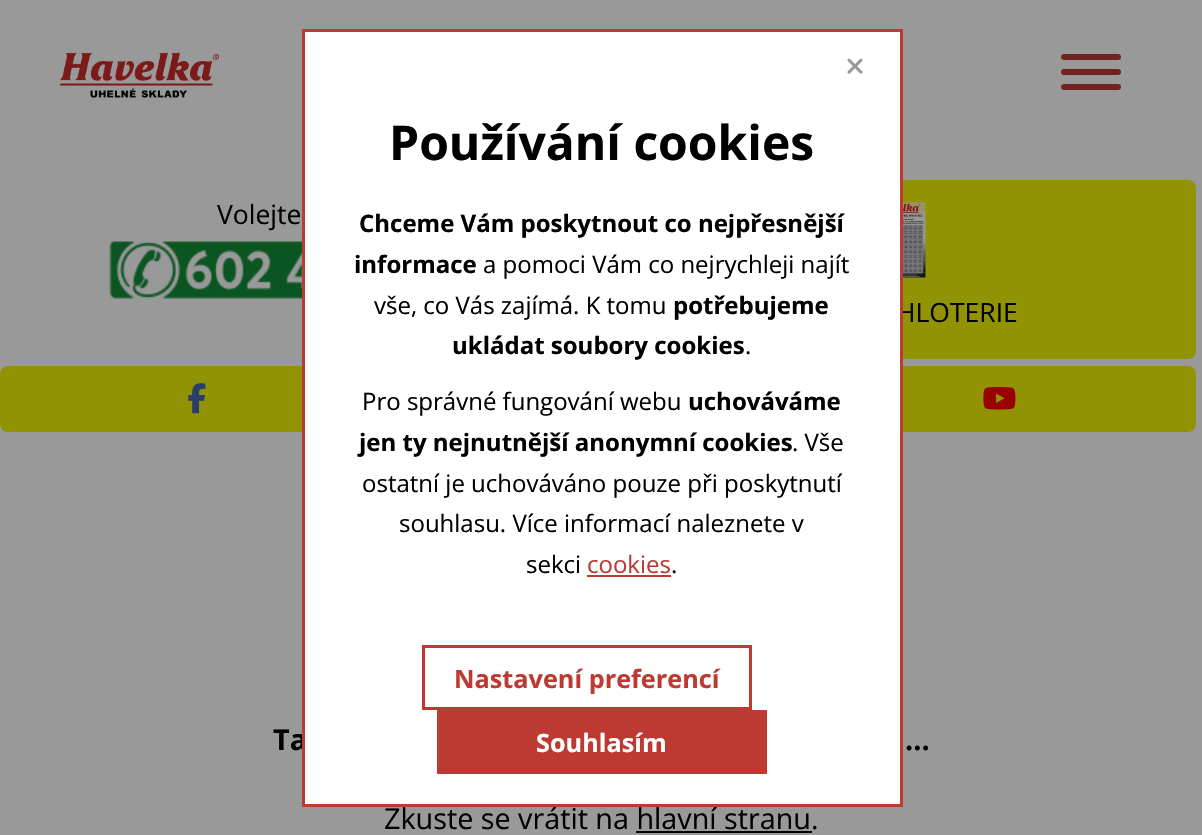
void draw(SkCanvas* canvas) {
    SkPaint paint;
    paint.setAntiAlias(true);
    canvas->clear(0xFF999999);
    canvas->drawImageRect(SkImages::DeferredFromEncodedData(SkData::MakeFromFileName("img1.png")), SkRect::MakeXYWH(60, 52, 159, 46), SkSamplingOptions());
    paint.setColor(0xFF71231F);
    canvas->drawRoundRect(SkRect::MakeXYWH(1061, 69, 60, 6), 3, 3, paint);
    canvas->drawRoundRect(SkRect::MakeXYWH(1061, 54, 60, 6), 3, 3, paint);
    canvas->drawRoundRect(SkRect::MakeXYWH(1061, 84, 60, 6), 3, 3, paint);
    paint.setColor(0xFF919302);
    canvas->drawRoundRect(SkRect::MakeXYWH(602, 180, 594, 179), 8, 8, paint);
    SkFont font1(fontMgr->matchFamilyStyle("Open Sans", SkFontStyle::Normal()), 26.5f);
    font1.setSubpixel(true);
    paint.setColor(0xFF000000);
    canvas->drawString("HLOTERIE", 896, 322, font1, paint);
    paint.setColor(0xFF919302);
    canvas->drawRoundRect(SkRect::MakeXYWH(0, 366, 393, 66), 8, 8, paint);
    canvas->drawRoundRect(SkRect::MakeXYWH(803, 366, 393, 66), 8, 8, paint);
    SkFont font2(fontMgr->matchFamilyStyle("Open Sans", SkFontStyle::Bold()), 28.75f);
    font2.setSubpixel(true);
    paint.setColor(0xFF000000);
    canvas->drawString("Ta", 273, 750, font2, paint);
    SkFont font3(fontMgr->matchFamilyStyle("Open Sans", SkFontStyle::Normal()), 28.75f);
    font3.setSubpixel(true);
    canvas->drawString("Zkuste se vrátit na hlavní stranu.", 384, 829, font3, paint);
    paint.setColor(0xFFFFFFFF);
    canvas->drawRect(SkRect::MakeXYWH(303.5f, 30.5f, 598, 775), paint);
    paint.setStyle(SkPaint::kStroke_Style);
    paint.setStrokeWidth(3);
    paint.setColor(0xFFBD3A33);
    canvas->drawRect(SkRect::MakeXYWH(303.5f, 30.5f, 598, 775), paint);
    canvas->drawImageRect(SkImages::DeferredFromEncodedData(SkData::MakeFromFileName("img2.png")), SkRect::MakeXYWH(847, 58, 16, 16), SkSamplingOptions());
    SkFont font4(fontMgr->matchFamilyStyle("Open Sans", SkFontStyle::Bold()), 48);
    font4.setSubpixel(true);
    paint.setStyle(SkPaint::kFill_Style);
    paint.setColor(0xFF000000);
    canvas->drawString("Používání cookies", 389, 160, font4, paint);
    SkFont font5(fontMgr->matchFamilyStyle("Open Sans", SkFontStyle::Bold()), 24);
    font5.setSubpixel(true);
    canvas->drawString("Chceme Vám poskytnout co nejpřesnější", 359, 232, font5, paint);
    canvas->drawString("informace", 354, 273, font5, paint);
    SkFont font6(fontMgr->matchFamilyStyle("Open Sans", SkFontStyle::Normal()), 24);
    font6.setSubpixel(true);
    canvas->drawString("a pomoci Vám co nejrychleji najít", 483, 273, font6, paint);
    canvas->drawString("vše, co Vás zajímá. K tomu", 374, 314, font6, paint);
    canvas->drawString("potřebujeme", 673, 314, font5, paint);
    canvas->drawString("ukládat soubory cookies", 452, 354, font5, paint);
    canvas->drawString(".", 745, 354, font6, paint);
    canvas->drawString("Pro správné fungování webu", 362, 410, font6, paint);
    canvas->drawString("uchováváme", 688, 410, font5, paint);
    canvas->drawString("jen ty nejnutnější anonymní cookies", 359, 451, font5, paint);
    canvas->drawString(". Vše", 792, 451, font6, paint);
    canvas->drawString("ostatní je uchováváno pouze při poskytnutí", 362, 492, font6, paint);
    canvas->drawString("souhlasu. Více informací naleznete v", 399, 532, font6, paint);
    canvas->drawString("sekci", 526, 573, font6, paint);
    paint.setColor(0xFFBD3A33);
    canvas->drawString("cookies", 587, 573, font6, paint);
    canvas->drawRect(SkRect::MakeXYWH(587, 575, 84, 2), paint);
    paint.setColor(0xFF000000);
    canvas->drawString(".", 671, 573, font6, paint);
    paint.setStyle(SkPaint::kStroke_Style);
    paint.setColor(0xFFBD3A33);
    canvas->drawRect(SkRect::MakeXYWH(423.5f, 646.5f, 327, 62), paint);
    SkFont font7(fontMgr->matchFamilyStyle("Open Sans", SkFontStyle::Bold()), 25.25f);
    font7.setSubpixel(true);
    paint.setStyle(SkPaint::kFill_Style);
    canvas->drawString("Nastavení preferencí", 454, 688, font7, paint);
    canvas->drawRect(SkRect::MakeXYWH(437, 710, 330, 64), paint);
    paint.setColor(0xFFFFFFFF);
    canvas->drawString("Souhlasím", 536, 752, font7, paint);
    paint.setColor(0xFF000000);
    canvas->drawString("Volejte", 217, 224, font1, paint);
    canvas->drawImageRect(SkImages::DeferredFromEncodedData(SkData::MakeFromFileName("img3.png")), SkRect::MakeXYWH(109, 241, 193, 58), SkSamplingOptions());
    canvas->drawImageRect(SkImages::DeferredFromEncodedData(SkData::MakeFromFileName("img4.png")), SkRect::MakeXYWH(903, 202, 23, 76), SkSamplingOptions());
    canvas->drawImageRect(SkImages::DeferredFromEncodedData(SkData::MakeFromFileName("img5.png")), SkRect::MakeXYWH(188, 383, 18, 31), SkSamplingOptions());
    canvas->drawImageRect(SkImages::DeferredFromEncodedData(SkData::MakeFromFileName("img6.png")), SkRect::MakeXYWH(983, 387, 33, 23), SkSamplingOptions());
    canvas->drawString("...", 905, 750, font2, paint);
    canvas->drawRect(SkRect::MakeXYWH(636, 831, 176, 2), paint);
}
